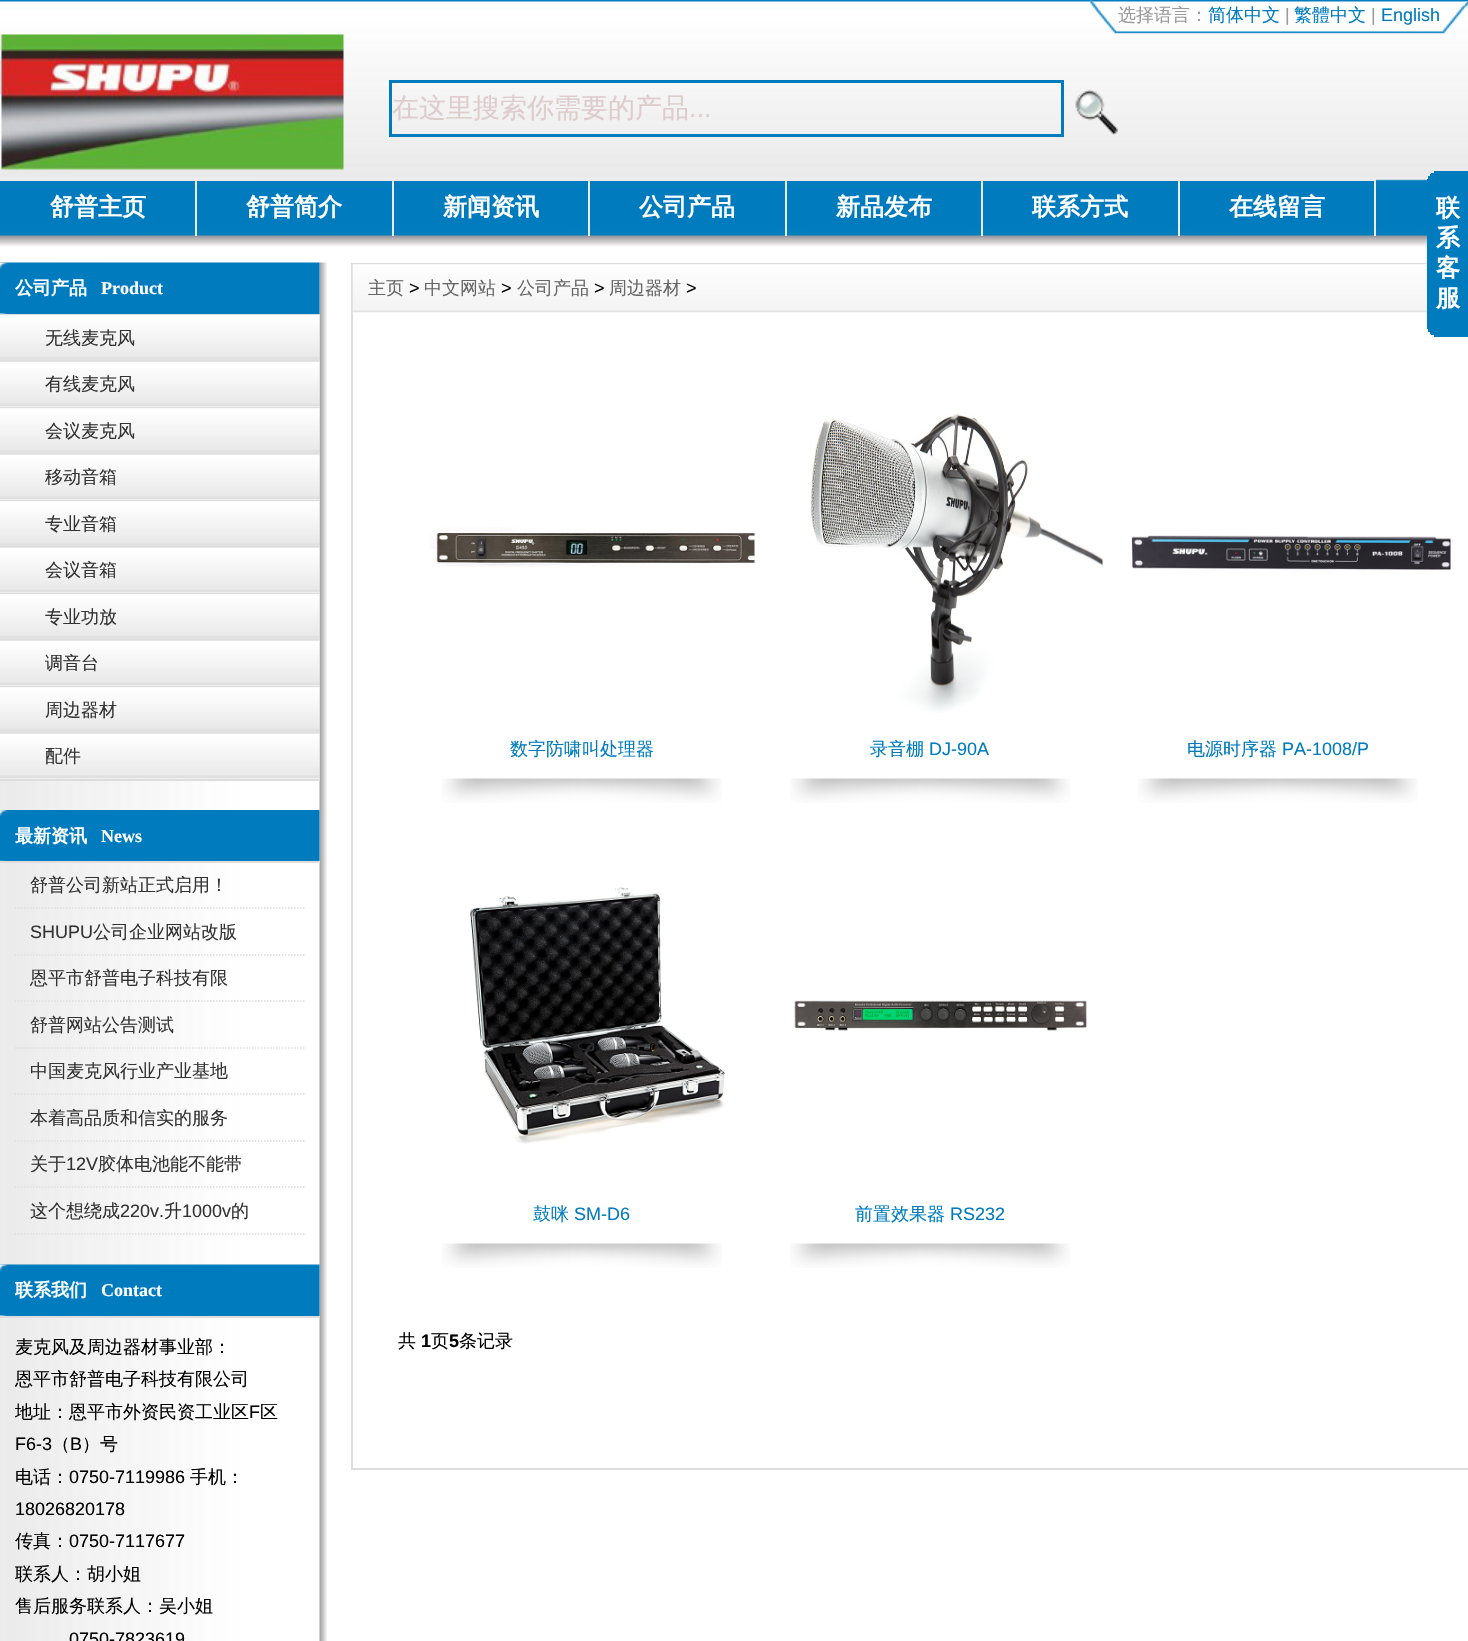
void draw(SkCanvas* canvas) {
    SkPaint paint;
    paint.setAntiAlias(true);
    canvas->clear(0xFFFFFFFF);
    canvas->drawImageRect(SkImages::DeferredFromEncodedData(SkData::MakeFromFileName("img1.png")), SkRect::MakeXYWH(0, 0, 1468, 179), SkSamplingOptions());
    canvas->drawImageRect(SkImages::DeferredFromEncodedData(SkData::MakeFromFileName("img2.png")), SkRect::MakeXYWH(1090, 0, 378, 35), SkSamplingOptions());
    SkFont font1(fontMgr->matchFamilyStyle("WenQuanYi Zen Hei", SkFontStyle(500, SkFontStyle::kNormal_Width, SkFontStyle::kUpright_Slant)), 18);
    font1.setSubpixel(true);
    paint.setColor(0xFF999999);
    canvas->drawString("选择语言：", 1118, 21, font1, paint);
    paint.setColor(0xFF007CBE);
    canvas->drawString("简体中文", 1208, 21, font1, paint);
    SkFont font2(fontMgr->matchFamilyStyle("Liberation Sans", SkFontStyle::Normal()), 18);
    font2.setSubpixel(true);
    paint.setColor(0xFF999999);
    canvas->drawString("|", 1285, 21, font2, paint);
    paint.setColor(0xFF007CBE);
    canvas->drawString("繁體中文", 1294, 21, font1, paint);
    paint.setColor(0xFF999999);
    canvas->drawString("|", 1371, 21, font2, paint);
    paint.setColor(0xFF007CBE);
    canvas->drawString("English", 1381, 21, font2, paint);
    canvas->drawImageRect(SkImages::DeferredFromEncodedData(SkData::MakeFromFileName("img3.png")), SkRect::MakeXYWH(0, 34, 344, 136), SkSamplingOptions());
    paint.setStyle(SkPaint::kStroke_Style);
    paint.setStrokeWidth(3);
    paint.setColor(0xFF007BBE);
    canvas->drawRect(SkRect::MakeXYWH(390.5f, 81.5f, 672, 54), paint);
    SkFont font3(fontMgr->matchFamilyStyle("WenQuanYi Zen Hei", SkFontStyle(500, SkFontStyle::kNormal_Width, SkFontStyle::kUpright_Slant)), 27);
    font3.setSubpixel(true);
    paint.setStyle(SkPaint::kFill_Style);
    paint.setColor(0xFFDECCCC);
    canvas->drawString("在这里搜索你需要的产品", 392, 117, font3, paint);
    SkFont font4(fontMgr->matchFamilyStyle("Liberation Sans", SkFontStyle::Normal()), 27);
    font4.setSubpixel(true);
    canvas->drawString("...", 689, 117, font4, paint);
    canvas->drawImageRect(SkImages::DeferredFromEncodedData(SkData::MakeFromFileName("img4.png")), SkRect::MakeXYWH(1075, 89, 43, 46), SkSamplingOptions());
    canvas->drawImageRect(SkImages::DeferredFromEncodedData(SkData::MakeFromFileName("img5.png")), SkRect::MakeXYWH(0, 178, 1428, 69), SkSamplingOptions());
    paint.setColor(0xFFEAEAEA);
    canvas->drawRect(SkRect::MakeXYWH(0, 179, 393, 2), paint);
    canvas->drawRect(SkRect::MakeXYWH(195, 179, 2, 57), paint);
    SkFont font5(fontMgr->matchFamilyStyle("WenQuanYi Zen Hei", SkFontStyle::Bold()), 24);
    font5.setSubpixel(true);
    paint.setColor(0xFFFFFFFF);
    canvas->drawString("舒普主页", 50, 215, font5, paint);
    paint.setColor(0xFFEAEAEA);
    canvas->drawRect(SkRect::MakeXYWH(392, 179, 2, 57), paint);
    paint.setColor(0xFFFFFFFF);
    canvas->drawString("舒普简介", 246, 215, font5, paint);
    paint.setColor(0xFFEAEAEA);
    canvas->drawRect(SkRect::MakeXYWH(393, 179, 393, 2), paint);
    canvas->drawRect(SkRect::MakeXYWH(588, 179, 2, 57), paint);
    paint.setColor(0xFFFFFFFF);
    canvas->drawString("新闻资讯", 443, 215, font5, paint);
    paint.setColor(0xFFEAEAEA);
    canvas->drawRect(SkRect::MakeXYWH(785, 179, 2, 57), paint);
    paint.setColor(0xFFFFFFFF);
    canvas->drawString("公司产品", 639, 215, font5, paint);
    paint.setColor(0xFFEAEAEA);
    canvas->drawRect(SkRect::MakeXYWH(786, 179, 393, 2), paint);
    canvas->drawRect(SkRect::MakeXYWH(981, 179, 2, 57), paint);
    paint.setColor(0xFFFFFFFF);
    canvas->drawString("新品发布", 836, 215, font5, paint);
    paint.setColor(0xFFEAEAEA);
    canvas->drawRect(SkRect::MakeXYWH(1178, 179, 2, 57), paint);
    paint.setColor(0xFFFFFFFF);
    canvas->drawString("联系方式", 1032, 215, font5, paint);
    paint.setColor(0xFFEAEAEA);
    canvas->drawRect(SkRect::MakeXYWH(1179, 179, 197, 2), paint);
    canvas->drawRect(SkRect::MakeXYWH(1374, 179, 2, 57), paint);
    paint.setColor(0xFFFFFFFF);
    canvas->drawString("在线留言", 1229, 215, font5, paint);
    paint.setColor(0xFF007BBE);
    canvas->drawRect(SkRect::MakeXYWH(1434, 171, 34, 2), paint);
    canvas->drawRect(SkRect::MakeXYWH(1431, 173, 37, 1), paint);
    canvas->drawRect(SkRect::MakeXYWH(1430, 174, 38, 2), paint);
    canvas->drawRect(SkRect::MakeXYWH(1428, 176, 40, 3), paint);
    paint.setStyle(SkPaint::kStroke_Style);
    paint.setStrokeWidth(2);
    paint.setColor(0xFFDDDDDD);
    canvas->drawRect(SkRect::MakeXYWH(352, 264, 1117, 1205), paint);
    paint.setStyle(SkPaint::kFill_Style);
    paint.setColor(0xFF007BBE);
    canvas->drawRect(SkRect::MakeXYWH(1427, 179, 41, 150), paint);
    paint.setColor(0xFFFFFFFF);
    canvas->drawString("联", 1436, 216, font5, paint);
    canvas->drawString("系", 1436, 246, font5, paint);
    canvas->drawString("客", 1436, 276, font5, paint);
    canvas->drawString("服", 1436, 306, font5, paint);
    paint.setColor(0xFF007BBE);
    canvas->drawRect(SkRect::MakeXYWH(1428, 329, 40, 3), paint);
    canvas->drawRect(SkRect::MakeXYWH(1430, 332, 38, 2), paint);
    canvas->drawRect(SkRect::MakeXYWH(1431, 334, 37, 1), paint);
    canvas->drawRect(SkRect::MakeXYWH(1434, 335, 34, 2), paint);
    canvas->drawImageRect(SkImages::DeferredFromEncodedData(SkData::MakeFromFileName("img6.png")), SkRect::MakeXYWH(0, 262, 327, 1379), SkSamplingOptions());
    canvas->drawImageRect(SkImages::DeferredFromEncodedData(SkData::MakeFromFileName("img7.png")), SkRect::MakeXYWH(0, 262, 320, 52), SkSamplingOptions());
    paint.setColor(0xFFDDDDDD);
    canvas->drawRect(SkRect::MakeXYWH(0, 314, 320, 2), paint);
    SkFont font6(fontMgr->matchFamilyStyle("WenQuanYi Zen Hei", SkFontStyle::Bold()), 18);
    font6.setSubpixel(true);
    paint.setColor(0xFFFFFFFF);
    canvas->drawString("公司产品", 15, 294, font6, paint);
    SkFont font7(fontMgr->matchFamilyStyle("Liberation Serif", SkFontStyle::Bold()), 18);
    font7.setSubpixel(true);
    canvas->drawString("Product", 101, 294, font7, paint);
    canvas->drawImageRect(SkImages::DeferredFromEncodedData(SkData::MakeFromFileName("img8.png")), SkRect::MakeXYWH(0, 315, 320, 45), SkSamplingOptions());
    paint.setColor(0xFFDDDDDD);
    canvas->drawRect(SkRect::MakeXYWH(0, 360, 320, 2), paint);
    paint.setColor(0xFF333333);
    canvas->drawString("无线麦克风", 45, 344, font1, paint);
    canvas->drawImageRect(SkImages::DeferredFromEncodedData(SkData::MakeFromFileName("img9.png")), SkRect::MakeXYWH(0, 361, 320, 46), SkSamplingOptions());
    paint.setColor(0xFFDDDDDD);
    canvas->drawRect(SkRect::MakeXYWH(0, 407, 320, 2), paint);
    paint.setColor(0xFF333333);
    canvas->drawString("有线麦克风", 45, 390, font1, paint);
    canvas->drawImageRect(SkImages::DeferredFromEncodedData(SkData::MakeFromFileName("img8.png")), SkRect::MakeXYWH(0, 408, 320, 45), SkSamplingOptions());
    paint.setColor(0xFFDDDDDD);
    canvas->drawRect(SkRect::MakeXYWH(0, 453, 320, 2), paint);
    paint.setColor(0xFF333333);
    canvas->drawString("会议麦克风", 45, 437, font1, paint);
    canvas->drawImageRect(SkImages::DeferredFromEncodedData(SkData::MakeFromFileName("img9.png")), SkRect::MakeXYWH(0, 454, 320, 46), SkSamplingOptions());
    paint.setColor(0xFFDDDDDD);
    canvas->drawRect(SkRect::MakeXYWH(0, 500, 320, 2), paint);
    paint.setColor(0xFF333333);
    canvas->drawString("移动音箱", 45, 483, font1, paint);
    canvas->drawImageRect(SkImages::DeferredFromEncodedData(SkData::MakeFromFileName("img8.png")), SkRect::MakeXYWH(0, 501, 320, 45), SkSamplingOptions());
    paint.setColor(0xFFDDDDDD);
    canvas->drawRect(SkRect::MakeXYWH(0, 546, 320, 2), paint);
    paint.setColor(0xFF333333);
    canvas->drawString("专业音箱", 45, 530, font1, paint);
    canvas->drawImageRect(SkImages::DeferredFromEncodedData(SkData::MakeFromFileName("img9.png")), SkRect::MakeXYWH(0, 547, 320, 46), SkSamplingOptions());
    paint.setColor(0xFFDDDDDD);
    canvas->drawRect(SkRect::MakeXYWH(0, 593, 320, 2), paint);
    paint.setColor(0xFF333333);
    canvas->drawString("会议音箱", 45, 576, font1, paint);
    canvas->drawImageRect(SkImages::DeferredFromEncodedData(SkData::MakeFromFileName("img8.png")), SkRect::MakeXYWH(0, 594, 320, 45), SkSamplingOptions());
    paint.setColor(0xFFDDDDDD);
    canvas->drawRect(SkRect::MakeXYWH(0, 639, 320, 2), paint);
    paint.setColor(0xFF333333);
    canvas->drawString("专业功放", 45, 623, font1, paint);
    canvas->drawImageRect(SkImages::DeferredFromEncodedData(SkData::MakeFromFileName("img9.png")), SkRect::MakeXYWH(0, 640, 320, 46), SkSamplingOptions());
    paint.setColor(0xFFDDDDDD);
    canvas->drawRect(SkRect::MakeXYWH(0, 686, 320, 2), paint);
    paint.setColor(0xFF333333);
    canvas->drawString("调音台", 45, 669, font1, paint);
    canvas->drawImageRect(SkImages::DeferredFromEncodedData(SkData::MakeFromFileName("img8.png")), SkRect::MakeXYWH(0, 687, 320, 45), SkSamplingOptions());
    paint.setColor(0xFFDDDDDD);
    canvas->drawRect(SkRect::MakeXYWH(0, 732, 320, 2), paint);
    paint.setColor(0xFF333333);
    canvas->drawString("周边器材", 45, 716, font1, paint);
    canvas->drawImageRect(SkImages::DeferredFromEncodedData(SkData::MakeFromFileName("img9.png")), SkRect::MakeXYWH(0, 733, 320, 46), SkSamplingOptions());
    paint.setColor(0xFFDDDDDD);
    canvas->drawRect(SkRect::MakeXYWH(0, 779, 320, 2), paint);
    paint.setColor(0xFF333333);
    canvas->drawString("配件", 45, 762, font1, paint);
    canvas->drawImageRect(SkImages::DeferredFromEncodedData(SkData::MakeFromFileName("img10.png")), SkRect::MakeXYWH(0, 810, 320, 51), SkSamplingOptions());
    paint.setColor(0xFFDDDDDD);
    canvas->drawRect(SkRect::MakeXYWH(0, 861, 320, 2), paint);
    paint.setColor(0xFFFFFFFF);
    canvas->drawString("最新资讯", 15, 842, font6, paint);
    canvas->drawString("News", 101, 842, font7, paint);
    paint.setStyle(SkPaint::kStroke_Style);
    paint.setStrokeWidth(1.5f);
    paint.setColor(0xFFDDDDDD);
    paint.setPathEffect(SkDashPathEffect::Make({{1.5f, 1.5f}}, 0));
    canvas->drawPath(SkPathBuilder().moveTo(15, 908).lineTo(304.5f, 908).detach(), paint);
    paint.setPathEffect(nullptr);
    paint.setStyle(SkPaint::kFill_Style);
    paint.setColor(0xFF333333);
    canvas->drawString("舒普公司新站正式启用！", 30, 891, font1, paint);
    paint.setStyle(SkPaint::kStroke_Style);
    paint.setColor(0xFFDDDDDD);
    paint.setPathEffect(SkDashPathEffect::Make({{1.5f, 1.5f}}, 0));
    canvas->drawPath(SkPathBuilder().moveTo(15, 955).lineTo(304.5f, 955).detach(), paint);
    paint.setPathEffect(nullptr);
    paint.setStyle(SkPaint::kFill_Style);
    paint.setColor(0xFF333333);
    canvas->drawString("SHUPU", 30, 938, font2, paint);
    canvas->drawString("公司企业网站改版", 93, 938, font1, paint);
    paint.setStyle(SkPaint::kStroke_Style);
    paint.setColor(0xFFDDDDDD);
    paint.setPathEffect(SkDashPathEffect::Make({{1.5f, 1.5f}}, 0));
    canvas->drawPath(SkPathBuilder().moveTo(15, 1001).lineTo(304.5f, 1001).detach(), paint);
    paint.setPathEffect(nullptr);
    paint.setStyle(SkPaint::kFill_Style);
    paint.setColor(0xFF333333);
    canvas->drawString("恩平市舒普电子科技有限", 30, 984, font1, paint);
    paint.setStyle(SkPaint::kStroke_Style);
    paint.setColor(0xFFDDDDDD);
    paint.setPathEffect(SkDashPathEffect::Make({{1.5f, 1.5f}}, 0));
    canvas->drawPath(SkPathBuilder().moveTo(15, 1048).lineTo(304.5f, 1048).detach(), paint);
    paint.setPathEffect(nullptr);
    paint.setStyle(SkPaint::kFill_Style);
    paint.setColor(0xFF333333);
    canvas->drawString("舒普网站公告测试", 30, 1031, font1, paint);
    paint.setStyle(SkPaint::kStroke_Style);
    paint.setColor(0xFFDDDDDD);
    paint.setPathEffect(SkDashPathEffect::Make({{1.5f, 1.5f}}, 0));
    canvas->drawPath(SkPathBuilder().moveTo(15, 1094).lineTo(304.5f, 1094).detach(), paint);
    paint.setPathEffect(nullptr);
    paint.setStyle(SkPaint::kFill_Style);
    paint.setColor(0xFF333333);
    canvas->drawString("中国麦克风行业产业基地", 30, 1077, font1, paint);
    paint.setStyle(SkPaint::kStroke_Style);
    paint.setColor(0xFFDDDDDD);
    paint.setPathEffect(SkDashPathEffect::Make({{1.5f, 1.5f}}, 0));
    canvas->drawPath(SkPathBuilder().moveTo(15, 1141).lineTo(304.5f, 1141).detach(), paint);
    paint.setPathEffect(nullptr);
    paint.setStyle(SkPaint::kFill_Style);
    paint.setColor(0xFF333333);
    canvas->drawString("本着高品质和信实的服务", 30, 1124, font1, paint);
    paint.setStyle(SkPaint::kStroke_Style);
    paint.setColor(0xFFDDDDDD);
    paint.setPathEffect(SkDashPathEffect::Make({{1.5f, 1.5f}}, 0));
    canvas->drawPath(SkPathBuilder().moveTo(15, 1187).lineTo(304.5f, 1187).detach(), paint);
    paint.setPathEffect(nullptr);
    paint.setStyle(SkPaint::kFill_Style);
    paint.setColor(0xFF333333);
    canvas->drawString("关于", 30, 1170, font1, paint);
    canvas->drawString("12V", 66, 1170, font2, paint);
    canvas->drawString("胶体电池能不能带", 98, 1170, font1, paint);
    paint.setStyle(SkPaint::kStroke_Style);
    paint.setColor(0xFFDDDDDD);
    paint.setPathEffect(SkDashPathEffect::Make({{1.5f, 1.5f}}, 0));
    canvas->drawPath(SkPathBuilder().moveTo(15, 1234).lineTo(304.5f, 1234).detach(), paint);
    paint.setPathEffect(nullptr);
    paint.setStyle(SkPaint::kFill_Style);
    paint.setColor(0xFF333333);
    canvas->drawString("这个想绕成", 30, 1217, font1, paint);
    canvas->drawString("220v.", 120, 1217, font2, paint);
    canvas->drawString("升", 164, 1217, font1, paint);
    canvas->drawString("1000v", 182, 1217, font2, paint);
    canvas->drawString("的", 231, 1217, font1, paint);
    canvas->drawImageRect(SkImages::DeferredFromEncodedData(SkData::MakeFromFileName("img11.png")), SkRect::MakeXYWH(0, 1264, 320, 52), SkSamplingOptions());
    paint.setColor(0xFFDDDDDD);
    canvas->drawRect(SkRect::MakeXYWH(0, 1316, 320, 2), paint);
    paint.setColor(0xFFFFFFFF);
    canvas->drawString("联系我们", 15, 1296, font6, paint);
    canvas->drawString("Contact", 101, 1296, font7, paint);
    paint.setColor(0xFF000000);
    canvas->drawString("麦克风及周边器材事业部：", 15, 1353, font1, paint);
    canvas->drawString("恩平市舒普电子科技有限公司", 15, 1385, font1, paint);
    canvas->drawString("地址：恩平市外资民资工业区", 15, 1418, font1, paint);
    canvas->drawString("F", 249, 1418, font2, paint);
    canvas->drawString("区", 260, 1418, font1, paint);
    canvas->drawString("F6-3", 15, 1450, font2, paint);
    canvas->drawString("（", 52, 1450, font1, paint);
    canvas->drawString("B", 70, 1450, font2, paint);
    canvas->drawString("）号", 82, 1450, font1, paint);
    canvas->drawString("电话：", 15, 1483, font1, paint);
    canvas->drawString("0750-7119986", 69, 1483, font2, paint);
    canvas->drawString("手机：", 190, 1483, font1, paint);
    canvas->drawString("18026820178", 15, 1515, font2, paint);
    canvas->drawString("传真：", 15, 1547, font1, paint);
    canvas->drawString("0750-7117677", 69, 1547, font2, paint);
    canvas->drawString("联系人：胡小姐", 15, 1580, font1, paint);
    canvas->drawString("售后服务联系人：吴小姐", 15, 1612, font1, paint);
    canvas->drawString("0750-7823619", 69, 1645, font2, paint);
    canvas->drawImageRect(SkImages::DeferredFromEncodedData(SkData::MakeFromFileName("img12.png")), SkRect::MakeXYWH(352, 264, 1075, 50), SkSamplingOptions());
    paint.setColor(0xFF666666);
    canvas->drawString("主页", 368, 294, font1, paint);
    paint.setColor(0xFF000000);
    canvas->drawString(">", 409, 294, font2, paint);
    paint.setColor(0xFF666666);
    canvas->drawString("中文网站", 424, 294, font1, paint);
    paint.setColor(0xFF000000);
    canvas->drawString(">", 501, 294, font2, paint);
    paint.setColor(0xFF666666);
    canvas->drawString("公司产品", 517, 294, font1, paint);
    paint.setColor(0xFF000000);
    canvas->drawString(">", 594, 294, font2, paint);
    paint.setColor(0xFF666666);
    canvas->drawString("周边器材", 609, 294, font1, paint);
    paint.setColor(0xFF000000);
    canvas->drawString(">", 686, 294, font2, paint);
    canvas->drawImageRect(SkImages::DeferredFromEncodedData(SkData::MakeFromFileName("img13.png")), SkRect::MakeXYWH(442, 778, 280, 25), SkSamplingOptions());
    canvas->drawImageRect(SkImages::DeferredFromEncodedData(SkData::MakeFromFileName("img14.png")), SkRect::MakeXYWH(429, 527, 326, 40), SkSamplingOptions());
    paint.setColor(0xFF007CBE);
    canvas->drawString("数字防啸叫处理器", 510, 755, font1, paint);
    canvas->drawImageRect(SkImages::DeferredFromEncodedData(SkData::MakeFromFileName("img15.png")), SkRect::MakeXYWH(790, 778, 280, 25), SkSamplingOptions());
    canvas->drawImageRect(SkImages::DeferredFromEncodedData(SkData::MakeFromFileName("img16.png")), SkRect::MakeXYWH(810, 412, 293, 301), SkSamplingOptions());
    canvas->drawString("录音棚", 870, 755, font1, paint);
    canvas->drawString("DJ-90A", 929, 755, font2, paint);
    canvas->drawImageRect(SkImages::DeferredFromEncodedData(SkData::MakeFromFileName("img17.png")), SkRect::MakeXYWH(1138, 778, 280, 25), SkSamplingOptions());
    canvas->drawImageRect(SkImages::DeferredFromEncodedData(SkData::MakeFromFileName("img18.png")), SkRect::MakeXYWH(1131, 535, 320, 36), SkSamplingOptions());
    canvas->drawString("电源时序器", 1187, 755, font1, paint);
    canvas->drawString("PA-1008/P", 1282, 755, font2, paint);
    canvas->drawImageRect(SkImages::DeferredFromEncodedData(SkData::MakeFromFileName("img13.png")), SkRect::MakeXYWH(442, 1243, 280, 25), SkSamplingOptions());
    canvas->drawImageRect(SkImages::DeferredFromEncodedData(SkData::MakeFromFileName("img19.png")), SkRect::MakeXYWH(470, 887, 255, 257), SkSamplingOptions());
    canvas->drawString("鼓咪", 533, 1220, font1, paint);
    canvas->drawString("SM-D6", 574, 1220, font2, paint);
    canvas->drawImageRect(SkImages::DeferredFromEncodedData(SkData::MakeFromFileName("img15.png")), SkRect::MakeXYWH(790, 1243, 280, 25), SkSamplingOptions());
    canvas->drawImageRect(SkImages::DeferredFromEncodedData(SkData::MakeFromFileName("img20.png")), SkRect::MakeXYWH(794, 1000, 293, 31), SkSamplingOptions());
    canvas->drawString("前置效果器", 855, 1220, font1, paint);
    canvas->drawString("RS232", 950, 1220, font2, paint);
    paint.setColor(0xFF000000);
    canvas->drawString("共", 398, 1347, font1, paint);
    SkFont font8(fontMgr->matchFamilyStyle("Liberation Sans", SkFontStyle::Bold()), 18);
    font8.setSubpixel(true);
    canvas->drawString("1", 421, 1347, font8, paint);
    canvas->drawString("页", 431, 1347, font1, paint);
    canvas->drawString("5", 449, 1347, font8, paint);
    canvas->drawString("条记录", 459, 1347, font1, paint);
}
